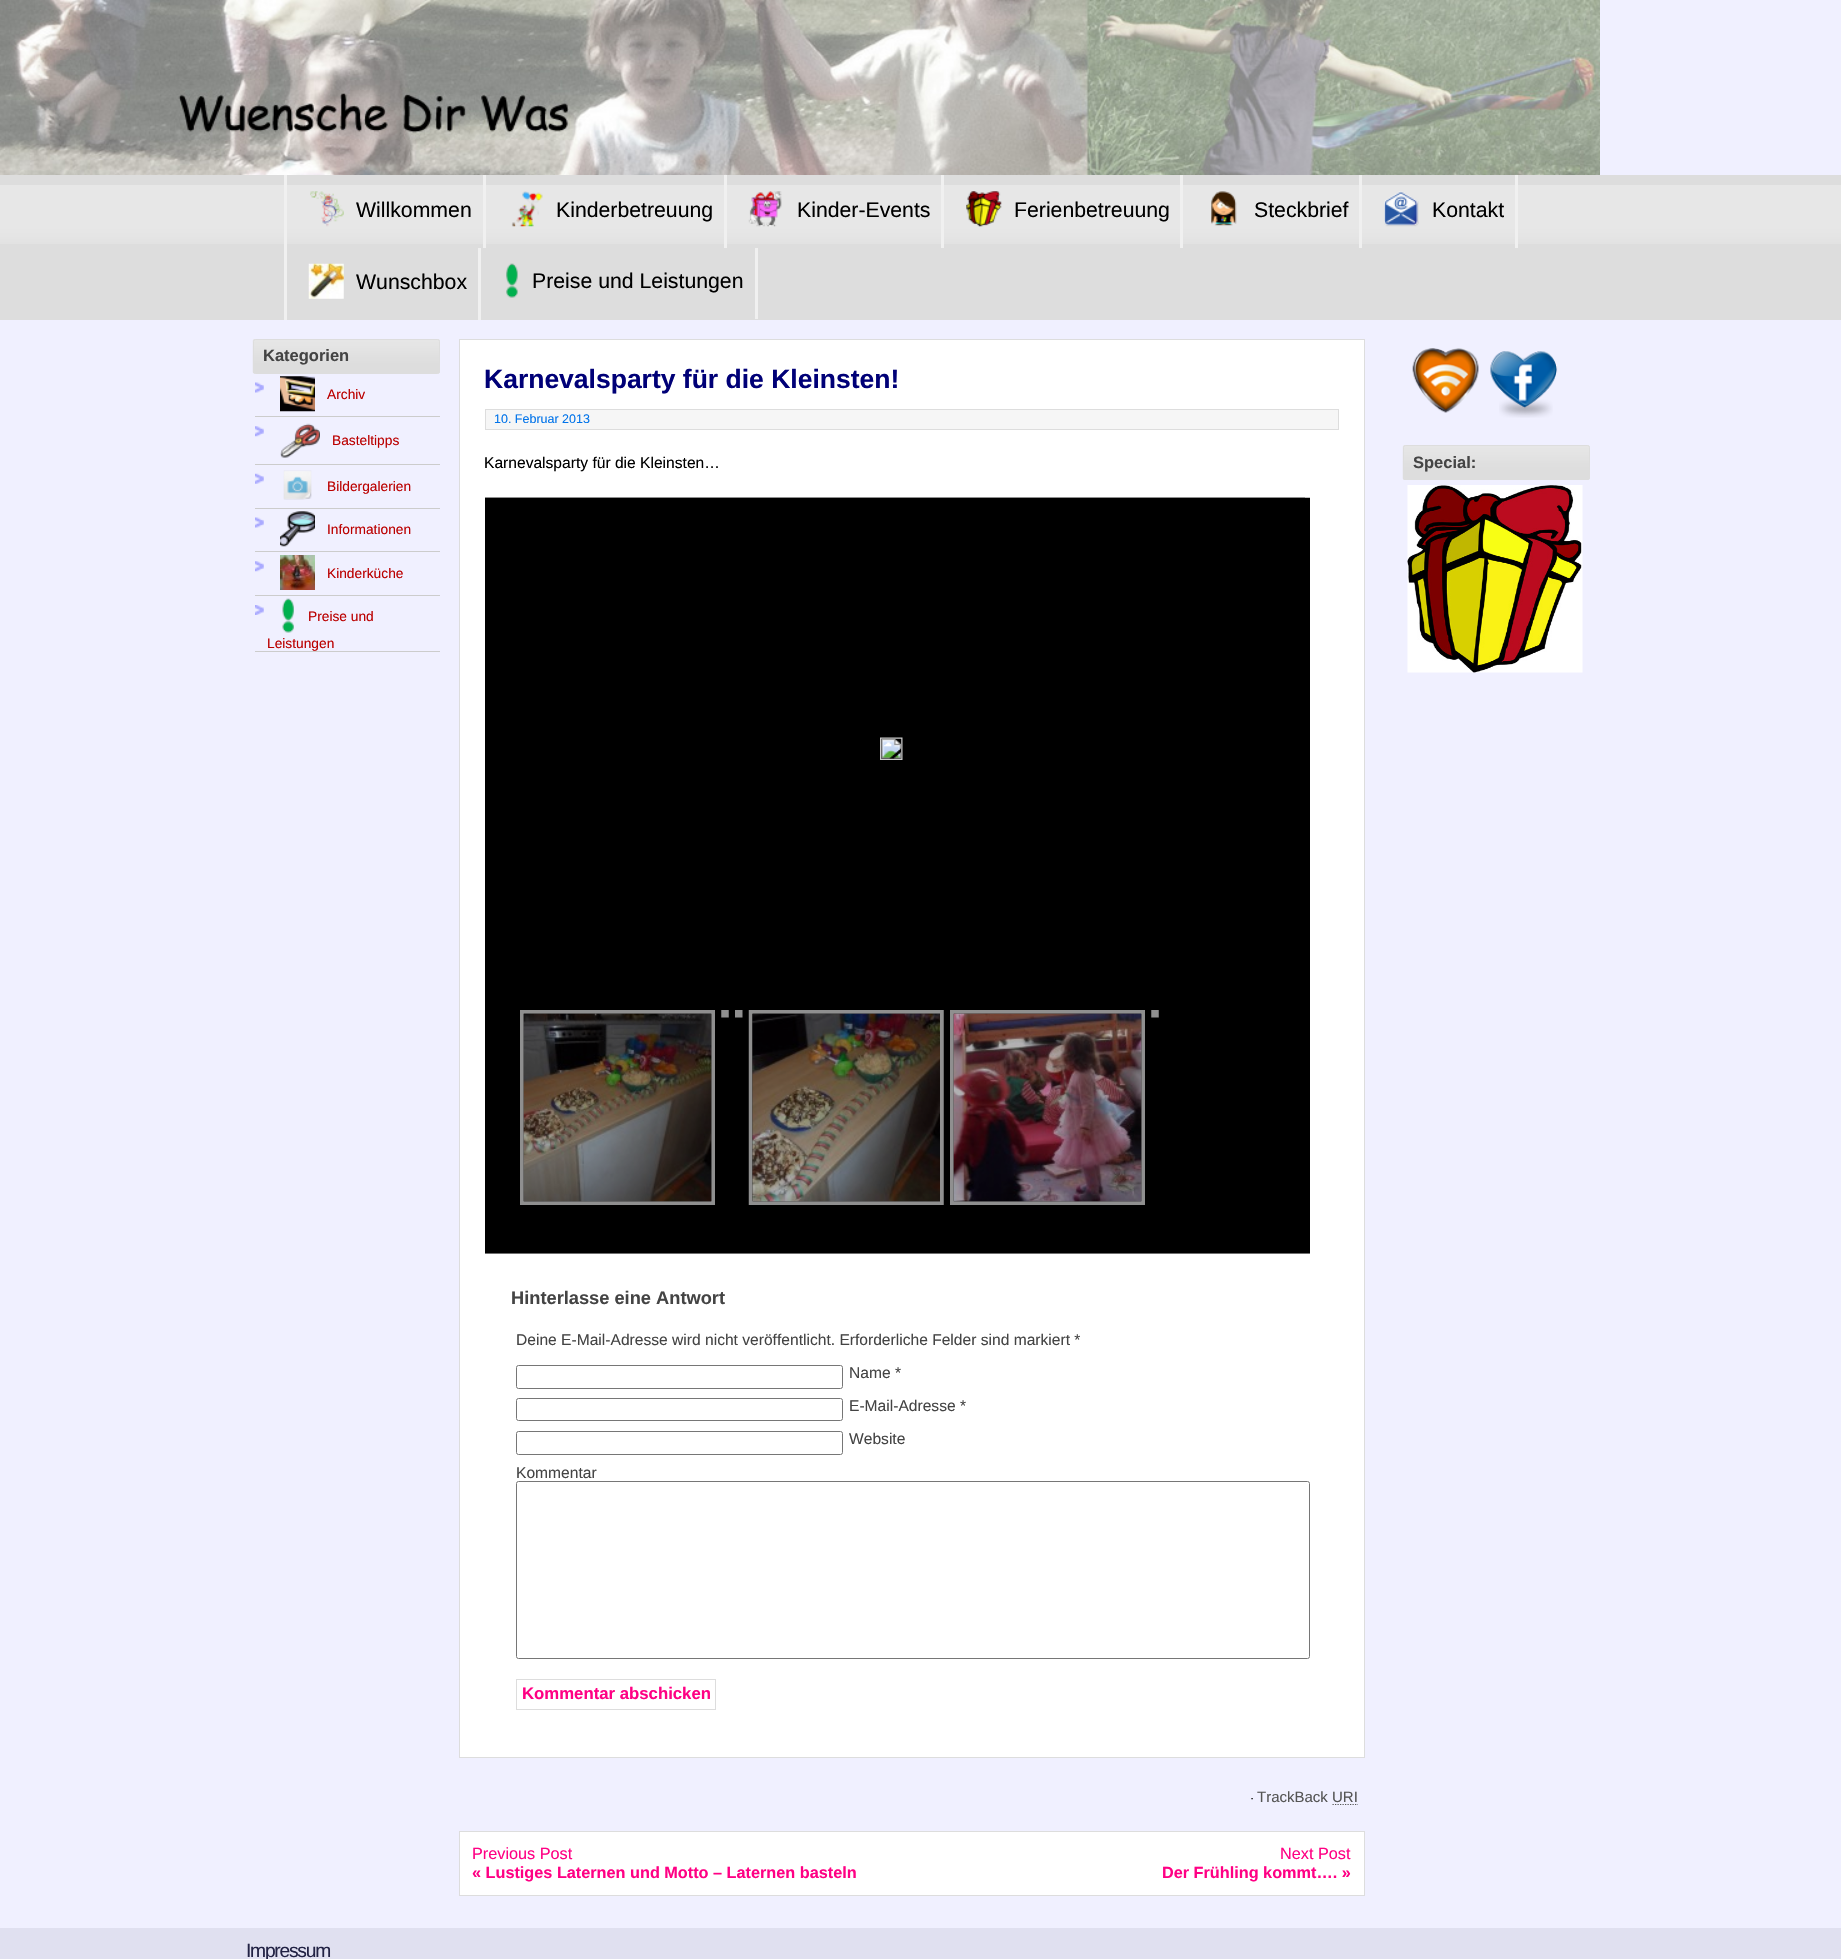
void draw(SkCanvas* canvas) {
    SkPaint paint;
    paint.setAntiAlias(true);
    auto spacedText = [&](const char* s, float x, float y, const SkFont& font, const SkPaint& ink, float letter, float word) {
        std::vector<SkGlyphID> glyphs(font.countText(s, strlen(s), SkTextEncoding::kUTF8));
        std::vector<float> xs(glyphs.size());
        font.textToGlyphs(s, strlen(s), SkTextEncoding::kUTF8, glyphs);
        font.getXPos(glyphs, xs, x);
        float extra = 0;
        for (size_t i = 0; i < glyphs.size(); i++) {
            xs[i] += extra;
            extra += letter + word * (glyphs[i] == font.unicharToGlyph(' '));
        }
        canvas->drawTextBlob(SkTextBlob::MakeFromPosHGlyphs(glyphs, xs, y, font), 0, 0, ink);
    };
    canvas->clear(0xFFF0F0FF);
    canvas->drawImageRect(SkImages::DeferredFromEncodedData(SkData::MakeFromFileName("img1.png")), SkRect::MakeXYWH(0, 0, 1600, 175), SkSamplingOptions());
    paint.setColor(0xFFDDDDDD);
    canvas->drawRect(SkRect::MakeXYWH(0, 175, 1841, 145), paint);
    canvas->drawImageRect(SkImages::DeferredFromEncodedData(SkData::MakeFromFileName("img2.png")), SkRect::MakeXYWH(0, 185, 1841, 59), SkSamplingOptions());
    paint.setColor(0xFFF0F0F0);
    canvas->drawRect(SkRect::MakeXYWH(284, 175, 3, 145), paint);
    canvas->drawRect(SkRect::MakeXYWH(483, 175, 3, 73), paint);
    canvas->drawImageRect(SkImages::DeferredFromEncodedData(SkData::MakeFromFileName("img3.png")), SkRect::MakeXYWH(310, 191, 34, 36), SkSamplingOptions());
    SkFont font1(fontMgr->matchFamilyStyle("Liberation Sans", SkFontStyle::Normal()), 21.25f);
    font1.setSubpixel(true);
    paint.setColor(0xFF000000);
    canvas->drawString("Willkommen", 356, 217, font1, paint);
    paint.setColor(0xFFF0F0F0);
    canvas->drawRect(SkRect::MakeXYWH(724, 175, 3, 73), paint);
    canvas->drawImageRect(SkImages::DeferredFromEncodedData(SkData::MakeFromFileName("img4.png")), SkRect::MakeXYWH(511, 191, 32, 36), SkSamplingOptions());
    paint.setColor(0xFF000000);
    canvas->drawString("Kinderbetreuung", 556, 217, font1, paint);
    paint.setColor(0xFFF0F0F0);
    canvas->drawRect(SkRect::MakeXYWH(941, 175, 3, 73), paint);
    canvas->drawImageRect(SkImages::DeferredFromEncodedData(SkData::MakeFromFileName("img5.png")), SkRect::MakeXYWH(748, 191, 34, 36), SkSamplingOptions());
    paint.setColor(0xFF000000);
    canvas->drawString("Kinder-Events", 797, 217, font1, paint);
    paint.setColor(0xFFF0F0F0);
    canvas->drawRect(SkRect::MakeXYWH(1180, 175, 3, 73), paint);
    canvas->drawImageRect(SkImages::DeferredFromEncodedData(SkData::MakeFromFileName("img6.png")), SkRect::MakeXYWH(966, 191, 36, 36), SkSamplingOptions());
    paint.setColor(0xFF000000);
    canvas->drawString("Ferienbetreuung", 1014, 217, font1, paint);
    paint.setColor(0xFFF0F0F0);
    canvas->drawRect(SkRect::MakeXYWH(1359, 175, 3, 73), paint);
    canvas->drawImageRect(SkImages::DeferredFromEncodedData(SkData::MakeFromFileName("img7.png")), SkRect::MakeXYWH(1211, 191, 26, 35), SkSamplingOptions());
    paint.setColor(0xFF000000);
    canvas->drawString("Steckbrief", 1254, 217, font1, paint);
    paint.setColor(0xFFF0F0F0);
    canvas->drawRect(SkRect::MakeXYWH(1515, 175, 3, 73), paint);
    canvas->drawImageRect(SkImages::DeferredFromEncodedData(SkData::MakeFromFileName("img8.png")), SkRect::MakeXYWH(1384, 191, 35, 36), SkSamplingOptions());
    paint.setColor(0xFF000000);
    canvas->drawString("Kontakt", 1432, 217, font1, paint);
    paint.setColor(0xFFF0F0F0);
    canvas->drawRect(SkRect::MakeXYWH(478, 248, 3, 72), paint);
    canvas->drawImageRect(SkImages::DeferredFromEncodedData(SkData::MakeFromFileName("img9.png")), SkRect::MakeXYWH(308, 263, 36, 36), SkSamplingOptions());
    paint.setColor(0xFF000000);
    canvas->drawString("Wunschbox", 356, 289, font1, paint);
    paint.setColor(0xFFF0F0F0);
    canvas->drawRect(SkRect::MakeXYWH(755, 248, 3, 71), paint);
    canvas->drawImageRect(SkImages::DeferredFromEncodedData(SkData::MakeFromFileName("img10.png")), SkRect::MakeXYWH(506, 263, 12, 35), SkSamplingOptions());
    paint.setColor(0xFF000000);
    canvas->drawString("Preise und Leistungen", 532, 288, font1, paint);
    canvas->drawImageRect(SkImages::DeferredFromEncodedData(SkData::MakeFromFileName("img11.png")), SkRect::MakeXYWH(252, 339, 188, 35), SkSamplingOptions());
    paint.setStyle(SkPaint::kStroke_Style);
    paint.setStrokeWidth(1);
    paint.setColor(0xFFDDDDDD);
    canvas->drawRoundRect(SkRect::MakeXYWH(253.5f, 339.5f, 186, 34), 2, 2, paint);
    SkFont font2(fontMgr->matchFamilyStyle("Liberation Sans", SkFontStyle::Bold()), 16.5f);
    font2.setSubpixel(true);
    paint.setStyle(SkPaint::kFill_Style);
    paint.setColor(0xFF444444);
    canvas->drawString("Kategorien", 263, 361, font2, paint);
    canvas->drawImageRect(SkImages::DeferredFromEncodedData(SkData::MakeFromFileName("img12.png")), SkRect::MakeXYWH(255, 382, 9, 11), SkSamplingOptions());
    paint.setColor(0xFFCCCCCC);
    canvas->drawRect(SkRect::MakeXYWH(255, 416, 185, 1), paint);
    canvas->drawImageRect(SkImages::DeferredFromEncodedData(SkData::MakeFromFileName("img13.png")), SkRect::MakeXYWH(280, 376, 35, 36), SkSamplingOptions());
    SkFont font3(fontMgr->matchFamilyStyle("Liberation Sans", SkFontStyle::Normal()), 13.75f);
    font3.setSubpixel(true);
    paint.setColor(0xFFBB0000);
    canvas->drawString("Archiv", 327, 399, font3, paint);
    canvas->drawImageRect(SkImages::DeferredFromEncodedData(SkData::MakeFromFileName("img14.png")), SkRect::MakeXYWH(255, 426, 9, 11), SkSamplingOptions());
    paint.setColor(0xFFCCCCCC);
    canvas->drawRect(SkRect::MakeXYWH(255, 464, 185, 1), paint);
    canvas->drawImageRect(SkImages::DeferredFromEncodedData(SkData::MakeFromFileName("img15.png")), SkRect::MakeXYWH(280, 423, 40, 35), SkSamplingOptions());
    paint.setColor(0xFFBB0000);
    canvas->drawString("Basteltipps", 332, 445, font3, paint);
    canvas->drawImageRect(SkImages::DeferredFromEncodedData(SkData::MakeFromFileName("img16.png")), SkRect::MakeXYWH(255, 473, 9, 11), SkSamplingOptions());
    paint.setColor(0xFFCCCCCC);
    canvas->drawRect(SkRect::MakeXYWH(255, 508, 185, 1), paint);
    canvas->drawImageRect(SkImages::DeferredFromEncodedData(SkData::MakeFromFileName("img17.png")), SkRect::MakeXYWH(283, 470, 29, 30), SkSamplingOptions());
    paint.setColor(0xFFBB0000);
    canvas->drawString("Bildergalerien", 327, 491, font3, paint);
    canvas->drawImageRect(SkImages::DeferredFromEncodedData(SkData::MakeFromFileName("img12.png")), SkRect::MakeXYWH(255, 517, 9, 11), SkSamplingOptions());
    paint.setColor(0xFFCCCCCC);
    canvas->drawRect(SkRect::MakeXYWH(255, 551, 185, 1), paint);
    canvas->drawImageRect(SkImages::DeferredFromEncodedData(SkData::MakeFromFileName("img18.png")), SkRect::MakeXYWH(280, 511, 35, 36), SkSamplingOptions());
    paint.setColor(0xFFBB0000);
    canvas->drawString("Informationen", 327, 534, font3, paint);
    canvas->drawImageRect(SkImages::DeferredFromEncodedData(SkData::MakeFromFileName("img14.png")), SkRect::MakeXYWH(255, 561, 9, 11), SkSamplingOptions());
    paint.setColor(0xFFCCCCCC);
    canvas->drawRect(SkRect::MakeXYWH(255, 595, 185, 1), paint);
    canvas->drawImageRect(SkImages::DeferredFromEncodedData(SkData::MakeFromFileName("img19.png")), SkRect::MakeXYWH(280, 555, 35, 35), SkSamplingOptions());
    paint.setColor(0xFFBB0000);
    canvas->drawString("Kinderküche", 327, 578, font3, paint);
    canvas->drawImageRect(SkImages::DeferredFromEncodedData(SkData::MakeFromFileName("img20.png")), SkRect::MakeXYWH(255, 605, 9, 10), SkSamplingOptions());
    paint.setColor(0xFFCCCCCC);
    canvas->drawRect(SkRect::MakeXYWH(255, 651, 185, 1), paint);
    canvas->drawImageRect(SkImages::DeferredFromEncodedData(SkData::MakeFromFileName("img21.png")), SkRect::MakeXYWH(282, 598, 12, 35), SkSamplingOptions());
    paint.setColor(0xFFBB0000);
    canvas->drawString("Preise und", 308, 621, font3, paint);
    canvas->drawString("Leistungen", 267, 648, font3, paint);
    paint.setColor(0xFFFFFFFF);
    canvas->drawRect(SkRect::MakeXYWH(459.5f, 339.5f, 905, 1418), paint);
    paint.setStyle(SkPaint::kStroke_Style);
    paint.setColor(0xFFDDDDDD);
    canvas->drawRect(SkRect::MakeXYWH(459.5f, 339.5f, 905, 1418), paint);
    SkFont font4(fontMgr->matchFamilyStyle("Liberation Sans", SkFontStyle::Bold()), 26.5f);
    font4.setSubpixel(true);
    paint.setStyle(SkPaint::kFill_Style);
    paint.setColor(0xFF000077);
    canvas->drawString("Karnevalsparty für die Kleinsten!", 484, 388, font4, paint);
    paint.setColor(0xFFF6F6F6);
    canvas->drawRect(SkRect::MakeXYWH(485.5f, 409.5f, 853, 20), paint);
    paint.setStyle(SkPaint::kStroke_Style);
    paint.setColor(0xFFDDDDDD);
    canvas->drawRect(SkRect::MakeXYWH(485.5f, 409.5f, 853, 20), paint);
    SkFont font5(fontMgr->matchFamilyStyle("Liberation Sans", SkFontStyle::Normal()), 12.5f);
    font5.setSubpixel(true);
    paint.setStyle(SkPaint::kFill_Style);
    paint.setColor(0xFF0073EA);
    canvas->drawString("10. Februar 2013", 494, 423, font5, paint);
    SkFont font6(fontMgr->matchFamilyStyle("Liberation Sans", SkFontStyle::Normal()), 15.6f);
    font6.setSubpixel(true);
    paint.setColor(0xFF000000);
    canvas->drawString("Karnevalsparty für die Kleinsten…", 484, 468, font6, paint);
    canvas->drawImageRect(SkImages::DeferredFromEncodedData(SkData::MakeFromFileName("img22.png")), SkRect::MakeXYWH(485, 497, 825, 757), SkSamplingOptions());
    SkFont font7(fontMgr->matchFamilyStyle("Liberation Sans", SkFontStyle::Bold()), 18.25f);
    font7.setSubpixel(true);
    paint.setColor(0xFF444444);
    canvas->drawString("Hinterlasse eine Antwort", 511, 1304, font7, paint);
    canvas->drawString("Deine E-Mail-Adresse wird nicht veröffentlicht. Erforderliche Felder sind markiert *", 516, 1345, font6, paint);
    paint.setStyle(SkPaint::kStroke_Style);
    paint.setColor(0xFF767676);
    canvas->drawRoundRect(SkRect::MakeXYWH(516.5f, 1365.5f, 326, 23), 2, 2, paint);
    paint.setStyle(SkPaint::kFill_Style);
    paint.setColor(0xFF444444);
    canvas->drawString("Name *", 849, 1378, font6, paint);
    paint.setStyle(SkPaint::kStroke_Style);
    paint.setColor(0xFF767676);
    canvas->drawRoundRect(SkRect::MakeXYWH(516.5f, 1398.5f, 326, 22), 2, 2, paint);
    paint.setStyle(SkPaint::kFill_Style);
    paint.setColor(0xFF444444);
    canvas->drawString("E-Mail-Adresse *", 849, 1411, font6, paint);
    paint.setStyle(SkPaint::kStroke_Style);
    paint.setColor(0xFF767676);
    canvas->drawRoundRect(SkRect::MakeXYWH(516.5f, 1431.5f, 326, 23), 2, 2, paint);
    paint.setStyle(SkPaint::kFill_Style);
    paint.setColor(0xFF444444);
    canvas->drawString("Website", 849, 1444, font6, paint);
    canvas->drawString("Kommentar", 516, 1478, font6, paint);
    paint.setStyle(SkPaint::kStroke_Style);
    paint.setColor(0xFF767676);
    canvas->drawRoundRect(SkRect::MakeXYWH(516.5f, 1481.5f, 793, 177), 2, 2, paint);
    paint.setColor(0xFFDDDDDD);
    canvas->drawRect(SkRect::MakeXYWH(516.5f, 1679.5f, 199, 30), paint);
    SkFont font8(fontMgr->matchFamilyStyle("Liberation Sans", SkFontStyle::Bold()), 16.75f);
    font8.setSubpixel(true);
    paint.setStyle(SkPaint::kFill_Style);
    paint.setColor(0xFFFF0084);
    canvas->drawString("Kommentar abschicken", 522, 1699, font8, paint);
    paint.setColor(0xFF000000);
    canvas->drawString("·", 1250, 1802, font5, paint);
    SkFont font9(fontMgr->matchFamilyStyle("Liberation Sans", SkFontStyle::Normal()), 15);
    font9.setSubpixel(true);
    paint.setColor(0xFF555555);
    canvas->drawString("TrackBack URI", 1257, 1802, font9, paint);
    paint.setStyle(SkPaint::kStroke_Style);
    paint.setStrokeWidth(1.2f);
    paint.setPathEffect(SkDashPathEffect::Make({{1.25f, 1.25f}}, 0));
    canvas->drawPath(SkPathBuilder().moveTo(1332.5f, 1804.5f).lineTo(1358, 1804.5f).detach(), paint);
    paint.setPathEffect(nullptr);
    paint.setStyle(SkPaint::kFill_Style);
    paint.setColor(0xFFFFFFFF);
    canvas->drawRect(SkRect::MakeXYWH(459.5f, 1831.5f, 905, 64), paint);
    paint.setStyle(SkPaint::kStroke_Style);
    paint.setStrokeWidth(1);
    paint.setColor(0xFFDDDDDD);
    canvas->drawRect(SkRect::MakeXYWH(459.5f, 1831.5f, 905, 64), paint);
    SkFont font10(fontMgr->matchFamilyStyle("Liberation Sans", SkFontStyle::Normal()), 16.25f);
    font10.setSubpixel(true);
    paint.setStyle(SkPaint::kFill_Style);
    paint.setColor(0xFFFF0084);
    canvas->drawString("Previous Post", 472, 1859, font10, paint);
    SkFont font11(fontMgr->matchFamilyStyle("Liberation Sans", SkFontStyle::Bold()), 16.25f);
    font11.setSubpixel(true);
    canvas->drawString("« Lustiges Laternen und Motto – Laternen basteln", 472, 1878, font11, paint);
    canvas->drawString("Next Post", 1280, 1859, font10, paint);
    canvas->drawString("Der Frühling kommt…. »", 1162, 1878, font11, paint);
    canvas->drawImageRect(SkImages::DeferredFromEncodedData(SkData::MakeFromFileName("img23.png")), SkRect::MakeXYWH(1412, 348, 67, 65), SkSamplingOptions());
    canvas->drawImageRect(SkImages::DeferredFromEncodedData(SkData::MakeFromFileName("img24.png")), SkRect::MakeXYWH(1490, 351, 68, 67), SkSamplingOptions());
    canvas->drawImageRect(SkImages::DeferredFromEncodedData(SkData::MakeFromFileName("img25.png")), SkRect::MakeXYWH(1402, 445, 188, 35), SkSamplingOptions());
    paint.setStyle(SkPaint::kStroke_Style);
    paint.setColor(0xFFDDDDDD);
    canvas->drawRoundRect(SkRect::MakeXYWH(1403.5f, 445.5f, 186, 34), 2, 2, paint);
    paint.setStyle(SkPaint::kFill_Style);
    paint.setColor(0xFF444444);
    canvas->drawString("Special:", 1413, 468, font2, paint);
    canvas->drawImageRect(SkImages::DeferredFromEncodedData(SkData::MakeFromFileName("img26.png")), SkRect::MakeXYWH(1407, 485, 176, 188), SkSamplingOptions());
    paint.setColor(0xFFE0E0F0);
    canvas->drawRect(SkRect::MakeXYWH(0, 1928, 1841, 31), paint);
    SkFont font12(fontMgr->matchFamilyStyle("Liberation Sans", SkFontStyle::Normal()), 19.25f);
    font12.setSubpixel(true);
    paint.setColor(0xFF222244);
    spacedText("Impressum", 246, 1957, font12, paint, -1.25f, 0);
}
